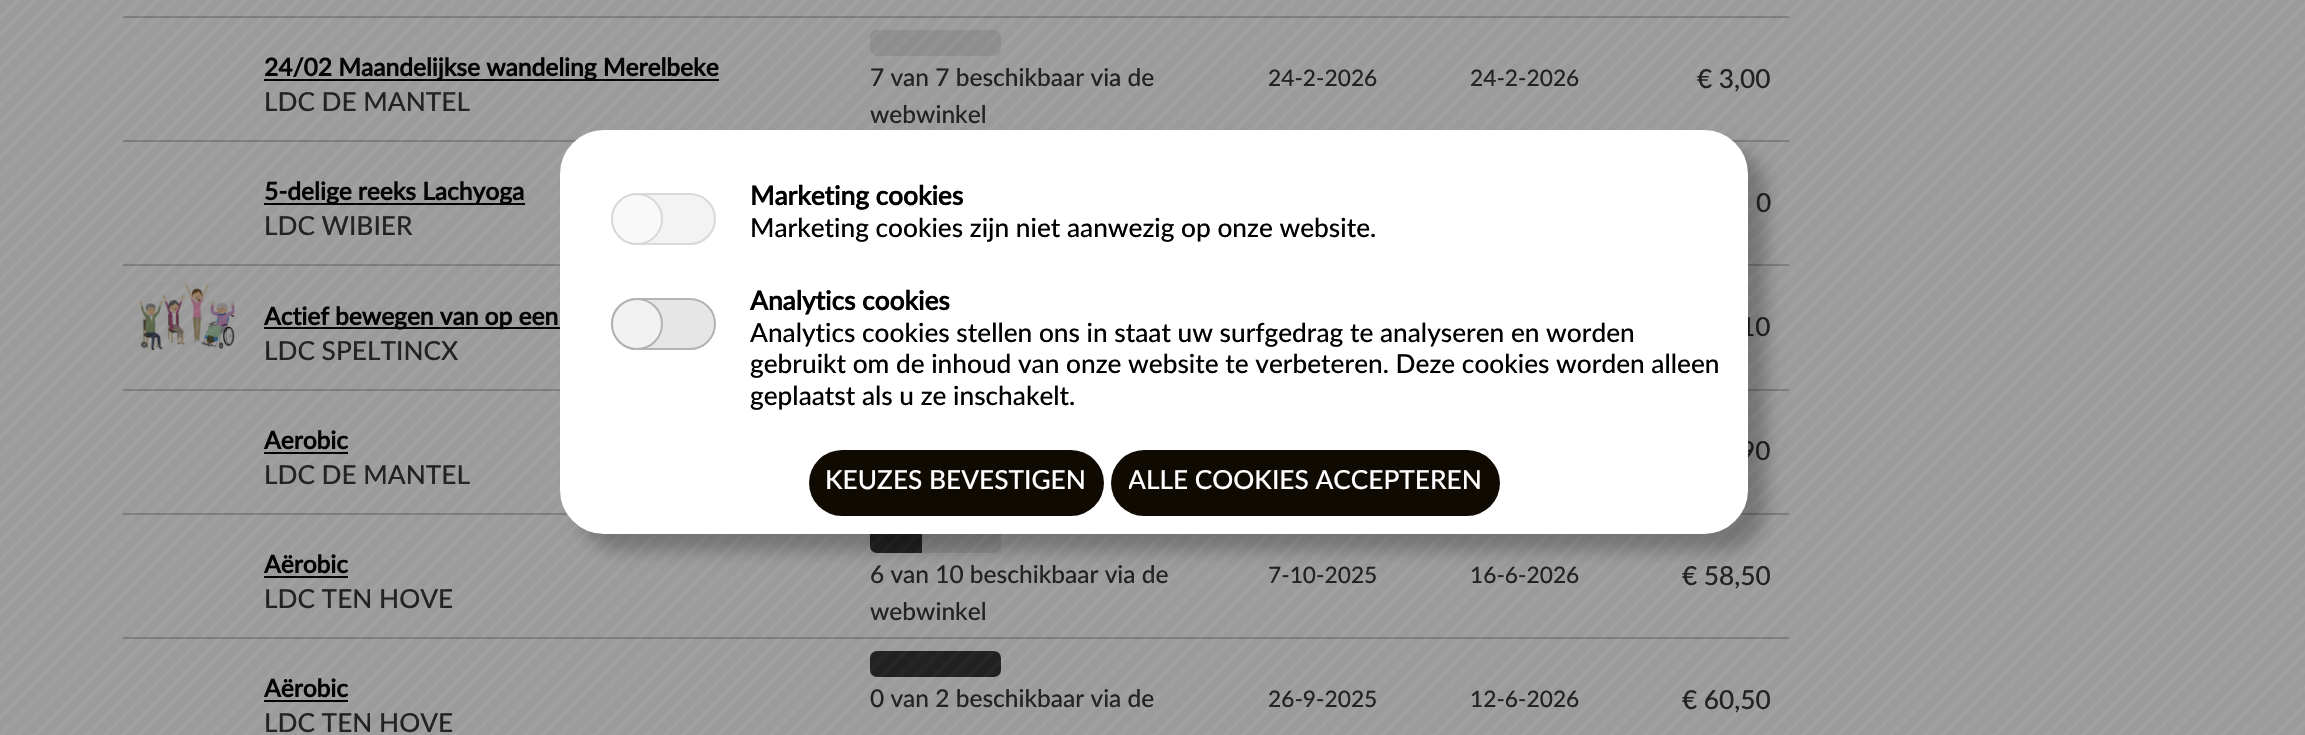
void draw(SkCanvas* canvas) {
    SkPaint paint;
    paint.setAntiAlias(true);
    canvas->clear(0xFFFFFFFF);
    paint.setColor(0xFFCCCCCC);
    canvas->drawRect(SkRect::MakeXYWH(123, 16, 1666, 2), paint);
    paint.setColor(0xFF000000);
    canvas->drawRect(SkRect::MakeXYWH(264, 79, 455, 2), paint);
    SkFont font1(fontMgr->matchFamilyStyle("Lato", SkFontStyle::Bold()), 24.5f);
    font1.setSubpixel(true);
    canvas->drawString("24/02 Maandelijkse wandeling Merelbeke", 264, 76, font1, paint);
    SkFont font2(fontMgr->matchFamilyStyle("Lato", SkFontStyle(500, SkFontStyle::kNormal_Width, SkFontStyle::kUpright_Slant)), 26.25f);
    font2.setSubpixel(true);
    paint.setColor(0xFF333333);
    canvas->drawString("LDC DE MANTEL", 264, 111, font2, paint);
    paint.setColor(0xFFE8E8E8);
    canvas->drawRoundRect(SkRect::MakeXYWH(870, 30, 131, 26), 7, 7, paint);
    SkFont font3(fontMgr->matchFamilyStyle("Lato", SkFontStyle(500, SkFontStyle::kNormal_Width, SkFontStyle::kUpright_Slant)), 24.5f);
    font3.setSubpixel(true);
    paint.setColor(0xFF333333);
    canvas->drawString("7 van 7 beschikbaar via de", 870, 86, font3, paint);
    canvas->drawString("webwinkel", 870, 123, font3, paint);
    SkFont font4(fontMgr->matchFamilyStyle("Lato", SkFontStyle(500, SkFontStyle::kNormal_Width, SkFontStyle::kUpright_Slant)), 22.75f);
    font4.setSubpixel(true);
    canvas->drawString("24-2-2026", 1268, 86, font4, paint);
    canvas->drawString("24-2-2026", 1470, 86, font4, paint);
    paint.setColor(0xFFCCCCCC);
    canvas->drawRect(SkRect::MakeXYWH(1732, 140, 57, 2), paint);
    paint.setColor(0xFF333333);
    canvas->drawString("€ 3,00", 1697, 88, font2, paint);
    paint.setColor(0xFFCCCCCC);
    canvas->drawRect(SkRect::MakeXYWH(123, 140, 453, 2), paint);
    paint.setColor(0xFF000000);
    canvas->drawRect(SkRect::MakeXYWH(264, 203, 261, 2), paint);
    canvas->drawString("5-delige reeks Lachyoga", 264, 200, font1, paint);
    paint.setColor(0xFF333333);
    canvas->drawString("LDC WIBIER", 264, 235, font2, paint);
    paint.setColor(0xFFCCCCCC);
    canvas->drawRect(SkRect::MakeXYWH(1748, 264, 41, 2), paint);
    paint.setColor(0xFF333333);
    canvas->drawString("0", 1756, 212, font2, paint);
    paint.setColor(0xFFCCCCCC);
    canvas->drawRect(SkRect::MakeXYWH(123, 264, 437, 2), paint);
    canvas->drawRect(SkRect::MakeXYWH(123, 389, 437, 2), paint);
    canvas->drawImageRect(SkImages::DeferredFromEncodedData(SkData::MakeFromFileName("img1.png")), SkRect::MakeXYWH(140, 282, 95, 68), SkSamplingOptions());
    paint.setColor(0xFF000000);
    canvas->drawRect(SkRect::MakeXYWH(264, 327, 296, 2), paint);
    canvas->drawString("Actief bewegen van op een", 264, 325, font1, paint);
    paint.setColor(0xFF333333);
    canvas->drawString("LDC SPELTINCX", 264, 360, font2, paint);
    paint.setColor(0xFFCCCCCC);
    canvas->drawRect(SkRect::MakeXYWH(1748, 389, 41, 2), paint);
    paint.setColor(0xFF333333);
    canvas->drawString("10", 1740, 336, font2, paint);
    paint.setColor(0xFF000000);
    canvas->drawString("Aerobic", 264, 449, font1, paint);
    canvas->drawRect(SkRect::MakeXYWH(264, 452, 84, 2), paint);
    paint.setColor(0xFF333333);
    canvas->drawString("LDC DE MANTEL", 264, 484, font2, paint);
    paint.setColor(0xFFCCCCCC);
    canvas->drawRect(SkRect::MakeXYWH(1740, 513, 49, 2), paint);
    paint.setColor(0xFF333333);
    canvas->drawString("90", 1740, 460, font2, paint);
    paint.setColor(0xFFCCCCCC);
    canvas->drawRect(SkRect::MakeXYWH(123, 513, 445, 2), paint);
    paint.setColor(0xFF000000);
    canvas->drawString("Aërobic", 264, 573, font1, paint);
    canvas->drawRect(SkRect::MakeXYWH(264, 576, 84, 2), paint);
    paint.setColor(0xFF333333);
    canvas->drawString("LDC TEN HOVE", 264, 608, font2, paint);
    paint.setColor(0xFFE8E8E8);
    canvas->drawRoundRect(SkRect::MakeXYWH(870, 527, 131, 26), 7, 7, paint);
    paint.setColor(0xFF333333);
    canvas->drawPath(SkPathBuilder().moveTo(877, 527).lineTo(922, 527).lineTo(922, 553).lineTo(877, 553).cubicTo(873, 553, 870, 550, 870, 546).lineTo(870, 534).cubicTo(870, 530, 873, 527, 877, 527).close().detach(), paint);
    canvas->drawString("6 van 10 beschikbaar via de", 870, 583, font3, paint);
    canvas->drawString("webwinkel", 870, 620, font3, paint);
    canvas->drawString("7-10-2025", 1268, 583, font4, paint);
    canvas->drawString("16-6-2026", 1470, 583, font4, paint);
    canvas->drawString("€ 58,50", 1682, 585, font2, paint);
    paint.setColor(0xFFCCCCCC);
    canvas->drawRect(SkRect::MakeXYWH(123, 637, 1666, 2), paint);
    paint.setColor(0xFF000000);
    canvas->drawString("Aërobic", 264, 697, font1, paint);
    canvas->drawRect(SkRect::MakeXYWH(264, 700, 84, 2), paint);
    paint.setColor(0xFF333333);
    canvas->drawString("LDC TEN HOVE", 264, 732, font2, paint);
    canvas->drawRoundRect(SkRect::MakeXYWH(870, 651, 131, 26), 7, 7, paint);
    canvas->drawString("0 van 2 beschikbaar via de", 870, 707, font3, paint);
    canvas->drawString("26-9-2025", 1268, 707, font4, paint);
    canvas->drawString("12-6-2026", 1470, 707, font4, paint);
    canvas->drawString("€ 60,50", 1682, 709, font2, paint);
    canvas->drawImageRect(SkImages::DeferredFromEncodedData(SkData::MakeFromFileName("img2.png")), SkRect::MakeXYWH(0, 0, 2305, 735), SkSamplingOptions());
    paint.setColor(0x40000000);
    paint.setMaskFilter(SkMaskFilter::MakeBlur(kNormal_SkBlurStyle, 9));
    canvas->drawRoundRect(SkRect::MakeXYWH(578, 147, 1188, 404), 44, 44, paint);
    paint.setMaskFilter(nullptr);
    paint.setColor(0xFFFFFFFF);
    canvas->drawRoundRect(SkRect::MakeXYWH(569, 139, 1170, 386), 35, 35, paint);
    paint.setStyle(SkPaint::kStroke_Style);
    paint.setStrokeWidth(18);
    canvas->drawRoundRect(SkRect::MakeXYWH(569, 139, 1170, 386), 35, 35, paint);
    paint.setStyle(SkPaint::kFill_Style);
    paint.setColor(0xFFF3F3F3);
    canvas->drawRoundRect(SkRect::MakeXYWH(612, 194, 103, 50), 25, 25, paint);
    paint.setStyle(SkPaint::kStroke_Style);
    paint.setStrokeWidth(2);
    paint.setColor(0xFFD9D9D9);
    canvas->drawRoundRect(SkRect::MakeXYWH(612, 194, 103, 50), 25, 25, paint);
    paint.setStyle(SkPaint::kFill_Style);
    paint.setColor(0xFFF9F9F9);
    canvas->drawCircle(637, 219, 25, paint);
    paint.setStyle(SkPaint::kStroke_Style);
    paint.setColor(0xFFD9D9D9);
    canvas->drawCircle(637, 219, 25, paint);
    SkFont font5(fontMgr->matchFamilyStyle("Lato", SkFontStyle::Bold()), 26.25f);
    font5.setSubpixel(true);
    paint.setStyle(SkPaint::kFill_Style);
    paint.setColor(0xFF000000);
    canvas->drawString("Marketing cookies", 750, 205, font5, paint);
    canvas->drawString("Marketing cookies zijn niet aanwezig op onze website.", 750, 237, font2, paint);
    paint.setColor(0xFFE6E6E6);
    canvas->drawRoundRect(SkRect::MakeXYWH(612, 299, 103, 50), 25, 25, paint);
    paint.setStyle(SkPaint::kStroke_Style);
    paint.setColor(0xFFB3B3B3);
    canvas->drawRoundRect(SkRect::MakeXYWH(612, 299, 103, 50), 25, 25, paint);
    paint.setStyle(SkPaint::kFill_Style);
    paint.setColor(0xFFF2F2F2);
    canvas->drawCircle(637, 324, 25, paint);
    paint.setStyle(SkPaint::kStroke_Style);
    paint.setColor(0xFFB3B3B3);
    canvas->drawCircle(637, 324, 25, paint);
    paint.setStyle(SkPaint::kFill_Style);
    paint.setColor(0xFF000000);
    canvas->drawString("Analytics cookies", 750, 310, font5, paint);
    canvas->drawString("Analytics cookies stellen ons in staat uw surfgedrag te analyseren en worden", 750, 342, font2, paint);
    canvas->drawString("gebruikt om de inhoud van onze website te verbeteren. Deze cookies worden alleen", 750, 373, font2, paint);
    canvas->drawString("geplaatst als u ze inschakelt.", 750, 405, font2, paint);
    paint.setColor(0xFF100B02);
    canvas->drawRoundRect(SkRect::MakeXYWH(809, 450, 295, 66), 33, 33, paint);
    paint.setColor(0xFFFFFFFF);
    canvas->drawString("KEUZES BEVESTIGEN", 825, 489, font2, paint);
    paint.setColor(0xFF100B02);
    canvas->drawRoundRect(SkRect::MakeXYWH(1111, 450, 389, 66), 33, 33, paint);
    canvas->save();
    canvas->clipPath(SkPathBuilder().moveTo(1134, 467).lineTo(1477, 467).cubicTo(1480, 467, 1482, 469, 1482, 472).lineTo(1482, 494).cubicTo(1482, 497, 1480, 499, 1477, 499).lineTo(1134, 499).cubicTo(1131, 499, 1129, 497, 1129, 494).lineTo(1129, 472).cubicTo(1129, 469, 1131, 467, 1134, 467).close().detach(), true);
    paint.setColor(0xFFFFFFFF);
    canvas->drawString("ALLE COOKIES ACCEPTEREN", 1128, 489, font2, paint);
    canvas->restore();
}
